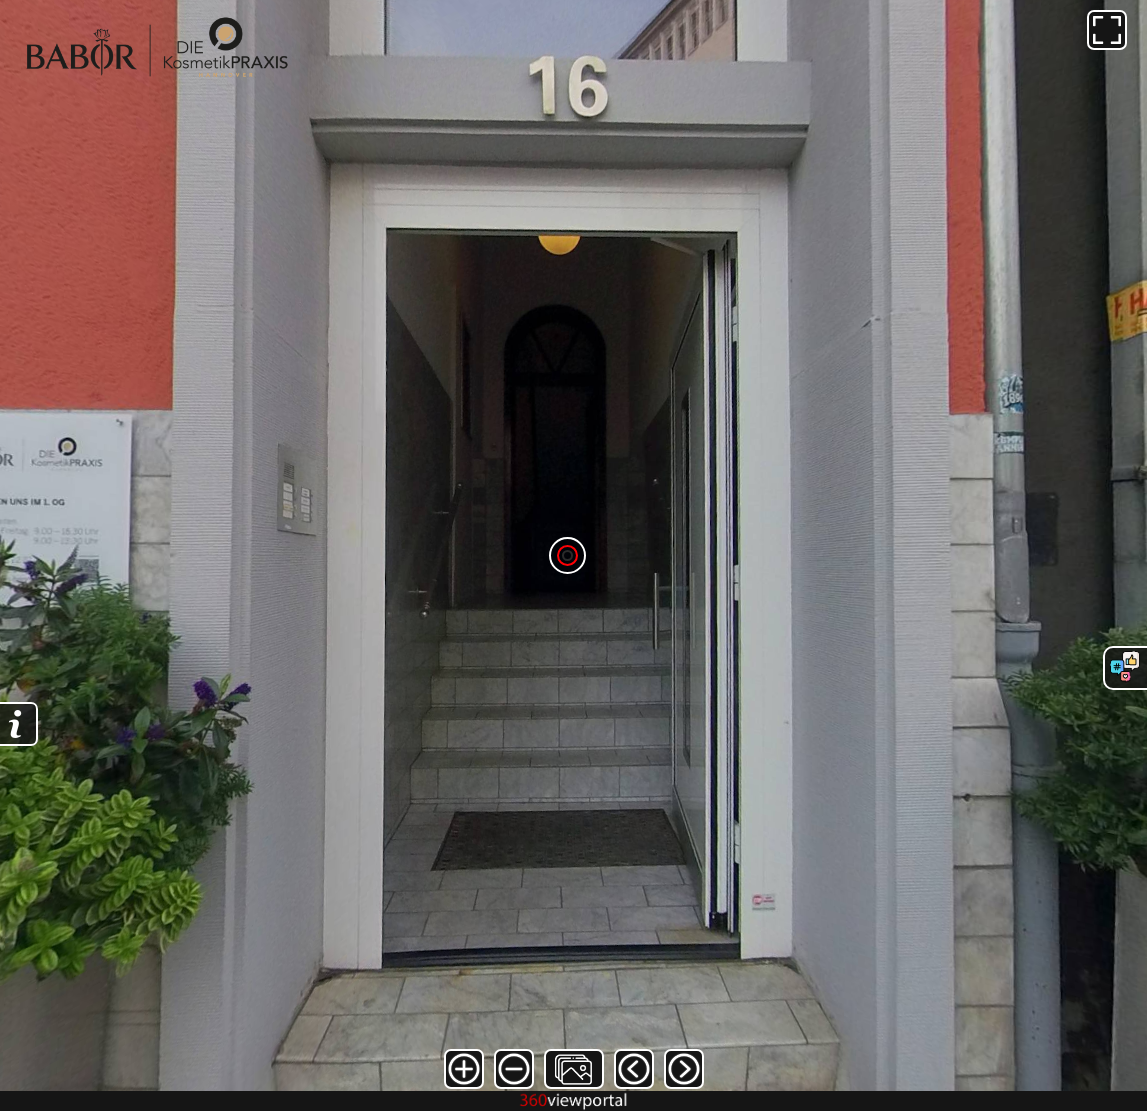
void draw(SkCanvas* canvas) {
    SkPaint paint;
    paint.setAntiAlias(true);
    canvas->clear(0xFFFFFFFF);
    canvas->drawImageRect(SkImages::DeferredFromEncodedData(SkData::MakeFromFileName("img1.png")), SkRect::MakeXYWH(0, 0, 1147, 1091), SkSamplingOptions());
    canvas->drawImageRect(SkImages::DeferredFromEncodedData(SkData::MakeFromFileName("img2.png")), SkRect::MakeXYWH(26, 17, 262, 60), SkSamplingOptions());
    paint.setColor(0xFF151515);
    canvas->drawRoundRect(SkRect::MakeXYWH(1088, 11, 38, 38), 6, 6, paint);
    paint.setStyle(SkPaint::kStroke_Style);
    paint.setStrokeWidth(2);
    paint.setColor(0xFFFFFFFF);
    canvas->drawRoundRect(SkRect::MakeXYWH(1088, 11, 38, 38), 6, 6, paint);
    canvas->drawImageRect(SkImages::DeferredFromEncodedData(SkData::MakeFromFileName("img3.png")), SkRect::MakeXYWH(1093, 16, 28, 28), SkSamplingOptions());
    paint.setColor(0xFF2A2A2A);
    canvas->drawCircle(567.5f, 555.5f, 4.5f, paint);
    paint.setColor(0xFFFF0004);
    canvas->drawCircle(567.5f, 555.5f, 9.5f, paint);
    paint.setColor(0xFFFFFFFF);
    canvas->drawCircle(567.5f, 555.5f, 17.5f, paint);
    paint.setStyle(SkPaint::kFill_Style);
    paint.setColor(0xC7151515);
    canvas->drawPath(SkPathBuilder().moveTo(1113, 646).lineTo(1147, 646).lineTo(1147, 690).lineTo(1113, 690).cubicTo(1107.5f, 690, 1103, 685.5f, 1103, 680).lineTo(1103, 656).cubicTo(1103, 650.5f, 1107.5f, 646, 1113, 646).close().detach(), paint);
    paint.setStyle(SkPaint::kStroke_Style);
    paint.setColor(0xFFFFFFFF);
    canvas->drawPath(SkPathBuilder().moveTo(1113, 647).lineTo(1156, 647).lineTo(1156, 689).lineTo(1113, 689).cubicTo(1108, 689, 1104, 685, 1104, 680).lineTo(1104, 656).cubicTo(1104, 651, 1108, 647, 1113, 647).close().detach(), paint);
    canvas->drawImageRect(SkImages::DeferredFromEncodedData(SkData::MakeFromFileName("img4.png")), SkRect::MakeXYWH(1110, 651, 30, 32), SkSamplingOptions());
    paint.setStyle(SkPaint::kFill_Style);
    paint.setColor(0xC7151515);
    canvas->drawPath(SkPathBuilder().moveTo(0, 702).lineTo(31, 702).cubicTo(35, 702, 38, 705, 38, 709).lineTo(38, 739).cubicTo(38, 743, 35, 746, 31, 746).lineTo(0, 746).close().detach(), paint);
    paint.setStyle(SkPaint::kStroke_Style);
    paint.setColor(0xFFFFFFFF);
    canvas->drawPath(SkPathBuilder().moveTo(-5, 703).lineTo(31, 703).cubicTo(34.5f, 703, 37, 705.5f, 37, 709).lineTo(37, 739).cubicTo(37, 742.5f, 34.5f, 745, 31, 745).lineTo(-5, 745).close().detach(), paint);
    canvas->drawImageRect(SkImages::DeferredFromEncodedData(SkData::MakeFromFileName("img5.png")), SkRect::MakeXYWH(8, 710, 14, 28), SkSamplingOptions());
    paint.setStyle(SkPaint::kFill_Style);
    paint.setColor(0xFF151515);
    canvas->drawRoundRect(SkRect::MakeXYWH(445, 1050, 38, 38), 6, 6, paint);
    paint.setStyle(SkPaint::kStroke_Style);
    paint.setColor(0xFFFFFFFF);
    canvas->drawRoundRect(SkRect::MakeXYWH(445, 1050, 38, 38), 6, 6, paint);
    canvas->drawImageRect(SkImages::DeferredFromEncodedData(SkData::MakeFromFileName("img6.png")), SkRect::MakeXYWH(447, 1052, 34, 34), SkSamplingOptions());
    paint.setStyle(SkPaint::kFill_Style);
    paint.setColor(0xFF151515);
    canvas->drawRoundRect(SkRect::MakeXYWH(495, 1050, 38, 38), 6, 6, paint);
    paint.setStyle(SkPaint::kStroke_Style);
    paint.setColor(0xFFFFFFFF);
    canvas->drawRoundRect(SkRect::MakeXYWH(495, 1050, 38, 38), 6, 6, paint);
    canvas->drawImageRect(SkImages::DeferredFromEncodedData(SkData::MakeFromFileName("img7.png")), SkRect::MakeXYWH(497, 1052, 34, 34), SkSamplingOptions());
    paint.setStyle(SkPaint::kFill_Style);
    paint.setColor(0xFF151515);
    canvas->drawRoundRect(SkRect::MakeXYWH(545, 1050, 58, 38), 6, 6, paint);
    paint.setStyle(SkPaint::kStroke_Style);
    paint.setColor(0xFFFFFFFF);
    canvas->drawRoundRect(SkRect::MakeXYWH(545, 1050, 58, 38), 6, 6, paint);
    canvas->drawImageRect(SkImages::DeferredFromEncodedData(SkData::MakeFromFileName("img8.png")), SkRect::MakeXYWH(555, 1054, 37, 31), SkSamplingOptions());
    paint.setStyle(SkPaint::kFill_Style);
    paint.setColor(0xFF151515);
    canvas->drawRoundRect(SkRect::MakeXYWH(615, 1050, 38, 38), 6, 6, paint);
    paint.setStyle(SkPaint::kStroke_Style);
    paint.setColor(0xFFFFFFFF);
    canvas->drawRoundRect(SkRect::MakeXYWH(615, 1050, 38, 38), 6, 6, paint);
    canvas->drawImageRect(SkImages::DeferredFromEncodedData(SkData::MakeFromFileName("img9.png")), SkRect::MakeXYWH(617, 1052, 34, 34), SkSamplingOptions());
    paint.setStyle(SkPaint::kFill_Style);
    paint.setColor(0xFF151515);
    canvas->drawRoundRect(SkRect::MakeXYWH(665, 1050, 38, 38), 6, 6, paint);
    paint.setStyle(SkPaint::kStroke_Style);
    paint.setColor(0xFFFFFFFF);
    canvas->drawRoundRect(SkRect::MakeXYWH(665, 1050, 38, 38), 6, 6, paint);
    canvas->drawImageRect(SkImages::DeferredFromEncodedData(SkData::MakeFromFileName("img10.png")), SkRect::MakeXYWH(667, 1052, 34, 34), SkSamplingOptions());
    paint.setStyle(SkPaint::kFill_Style);
    paint.setColor(0xFF151515);
    canvas->drawRect(SkRect::MakeXYWH(0, 1091, 1147, 20), paint);
    canvas->drawImageRect(SkImages::DeferredFromEncodedData(SkData::MakeFromFileName("img11.png")), SkRect::MakeXYWH(519, 1092, 108, 19), SkSamplingOptions());
}
